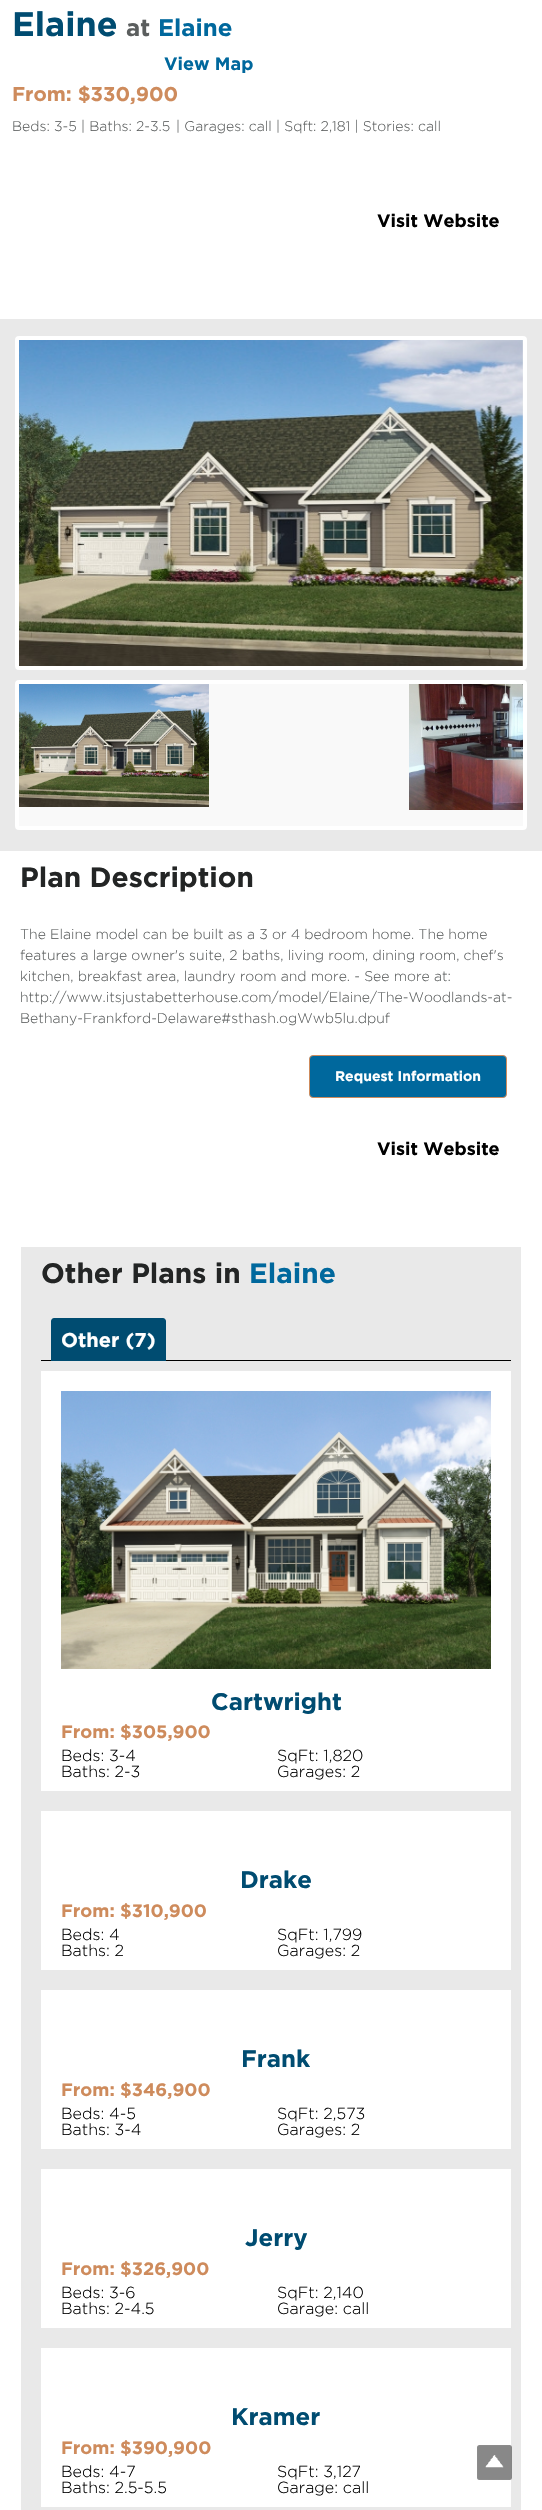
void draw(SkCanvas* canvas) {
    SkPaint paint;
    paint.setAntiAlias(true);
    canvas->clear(0xFFFFFFFF);
    SkFont font1(fontMgr->matchFamilyStyle("Gotham", SkFontStyle::Bold()), 34);
    font1.setSubpixel(true);
    paint.setColor(0xFF004C71);
    canvas->drawString("Elaine", 12, 36, font1, paint);
    SkFont font2(fontMgr->matchFamilyStyle("Gotham", SkFontStyle::Bold()), 24);
    font2.setSubpixel(true);
    paint.setColor(0xFF5B5E5E);
    canvas->drawString("at", 126, 36, font2, paint);
    paint.setColor(0xFF00689D);
    canvas->drawString("Elaine", 158, 36, font2, paint);
    SkFont font3(fontMgr->matchFamilyStyle("Gotham", SkFontStyle::Bold()), 18);
    font3.setSubpixel(true);
    canvas->drawString("View Map", 164, 70, font3, paint);
    SkFont font4(fontMgr->matchFamilyStyle("Gotham", SkFontStyle::Bold()), 20);
    font4.setSubpixel(true);
    paint.setColor(0xFFCE8B5C);
    canvas->drawString("From: $330,900", 12, 101, font4, paint);
    SkFont font5(fontMgr->matchFamilyStyle("Gotham", SkFontStyle(300, SkFontStyle::kNormal_Width, SkFontStyle::kUpright_Slant)), 14);
    font5.setSubpixel(true);
    paint.setColor(0xFF5B5E5E);
    canvas->drawString("Beds: 3-5 | Baths: 2-3.5", 12, 131, font5, paint);
    canvas->drawString("| Garages: call | Sqft: 2,181 | Stories: call", 176, 131, font5, paint);
    paint.setColor(0xFF000000);
    canvas->drawString("Visit Website", 377, 227, font3, paint);
    paint.setColor(0xFFE9E9E9);
    canvas->drawRect(SkRect::MakeXYWH(0, 319, 542, 532), paint);
    paint.setStyle(SkPaint::kStroke_Style);
    paint.setStrokeWidth(4);
    paint.setColor(0xFFFFFFFF);
    canvas->drawRoundRect(SkRect::MakeXYWH(17, 338, 508, 330), 2, 2, paint);
    canvas->drawImageRect(SkImages::DeferredFromEncodedData(SkData::MakeFromFileName("img1.png")), SkRect::MakeXYWH(19, 340, 504, 326), SkSamplingOptions());
    paint.setStyle(SkPaint::kFill_Style);
    paint.setColor(0xFFF9F9F9);
    canvas->drawRoundRect(SkRect::MakeXYWH(17, 682, 508, 146), 2, 2, paint);
    paint.setStyle(SkPaint::kStroke_Style);
    paint.setColor(0xFFFFFFFF);
    canvas->drawRoundRect(SkRect::MakeXYWH(17, 682, 508, 146), 2, 2, paint);
    canvas->drawImageRect(SkImages::DeferredFromEncodedData(SkData::MakeFromFileName("img2.png")), SkRect::MakeXYWH(19, 684, 190, 123), SkSamplingOptions());
    canvas->drawImageRect(SkImages::DeferredFromEncodedData(SkData::MakeFromFileName("img3.png")), SkRect::MakeXYWH(409, 684, 114, 126), SkSamplingOptions());
    SkFont font6(fontMgr->matchFamilyStyle("Gotham", SkFontStyle::Bold()), 28);
    font6.setSubpixel(true);
    paint.setStyle(SkPaint::kFill_Style);
    paint.setColor(0xFF232525);
    canvas->drawString("Plan Description", 20, 887, font6, paint);
    paint.setColor(0xFF5B5E5E);
    canvas->drawString("The Elaine model can be built as a 3 or 4 bedroom home. The home", 20, 939, font5, paint);
    canvas->drawString("features a large owner's suite, 2 baths, living room, dining room, chef's", 20, 960, font5, paint);
    canvas->drawString("kitchen, breakfast area, laundry room and more. - See more at:", 20, 981, font5, paint);
    canvas->drawString("http://www.itsjustabetterhouse.com/model/Elaine/The-Woodlands-at-", 20, 1002, font5, paint);
    canvas->drawString("Bethany-Frankford-Delaware#sthash.ogWwb5lu.dpuf", 20, 1023, font5, paint);
    paint.setColor(0xFF00689D);
    canvas->drawRoundRect(SkRect::MakeXYWH(309.5f, 1055.5f, 197, 42), 3.5f, 3.5f, paint);
    paint.setStyle(SkPaint::kStroke_Style);
    paint.setStrokeWidth(1);
    paint.setColor(0xFFCE8B5C);
    canvas->drawRoundRect(SkRect::MakeXYWH(309.5f, 1055.5f, 197, 42), 3.5f, 3.5f, paint);
    SkFont font7(fontMgr->matchFamilyStyle("Gotham", SkFontStyle::Bold()), 14);
    font7.setSubpixel(true);
    paint.setStyle(SkPaint::kFill_Style);
    paint.setColor(0xFFFFFFFF);
    canvas->drawString("Request Information", 335, 1081, font7, paint);
    paint.setColor(0xFF000000);
    canvas->drawString("Visit Website", 377, 1155, font3, paint);
    paint.setColor(0xFFE9E9E9);
    canvas->drawRect(SkRect::MakeXYWH(21, 1247, 500, 1263), paint);
    paint.setColor(0xFF232525);
    canvas->drawString("Other Plans in", 41, 1283, font6, paint);
    paint.setColor(0xFF00689D);
    canvas->drawString("Elaine", 249, 1283, font6, paint);
    paint.setColor(0xFF000000);
    canvas->drawRect(SkRect::MakeXYWH(41, 1360, 470, 1), paint);
    paint.setColor(0xFF004C71);
    canvas->drawPath(SkPathBuilder().moveTo(54, 1318).lineTo(163, 1318).cubicTo(164.5f, 1318, 166, 1319.5f, 166, 1321).lineTo(166, 1361).lineTo(51, 1361).lineTo(51, 1321).cubicTo(51, 1319.5f, 52.5f, 1318, 54, 1318).close().detach(), paint);
    paint.setColor(0xFFFFFFFF);
    canvas->drawString("Other (7)", 61, 1347, font4, paint);
    canvas->drawRect(SkRect::MakeXYWH(41, 1371, 470, 420), paint);
    canvas->drawImageRect(SkImages::DeferredFromEncodedData(SkData::MakeFromFileName("img4.png")), SkRect::MakeXYWH(61, 1391, 430, 278), SkSamplingOptions());
    paint.setColor(0xFF004C71);
    canvas->drawString("Cartwright", 211, 1710, font2, paint);
    paint.setColor(0xFFCE8B5C);
    canvas->drawString("From: $305,900", 61, 1738, font3, paint);
    SkFont font8(fontMgr->matchFamilyStyle("Gotham", SkFontStyle(300, SkFontStyle::kNormal_Width, SkFontStyle::kUpright_Slant)), 16);
    font8.setSubpixel(true);
    paint.setColor(0xFF000000);
    canvas->drawString("Beds: 3-4", 61, 1761, font8, paint);
    canvas->drawString("Baths: 2-3", 61, 1777, font8, paint);
    canvas->drawString("SqFt: 1,820", 277, 1761, font8, paint);
    canvas->drawString("Garages: 2", 277, 1777, font8, paint);
    paint.setColor(0xFFFFFFFF);
    canvas->drawRect(SkRect::MakeXYWH(41, 1811, 470, 159), paint);
    paint.setColor(0xFF004C71);
    canvas->drawString("Drake", 240, 1888, font2, paint);
    paint.setColor(0xFFCE8B5C);
    canvas->drawString("From: $310,900", 61, 1917, font3, paint);
    paint.setColor(0xFF000000);
    canvas->drawString("Beds: 4", 61, 1940, font8, paint);
    canvas->drawString("Baths: 2", 61, 1956, font8, paint);
    canvas->drawString("SqFt: 1,799", 277, 1940, font8, paint);
    canvas->drawString("Garages: 2", 277, 1956, font8, paint);
    paint.setColor(0xFFFFFFFF);
    canvas->drawRect(SkRect::MakeXYWH(41, 1990, 470, 159), paint);
    paint.setColor(0xFF004C71);
    canvas->drawString("Frank", 241, 2067, font2, paint);
    paint.setColor(0xFFCE8B5C);
    canvas->drawString("From: $346,900", 61, 2096, font3, paint);
    paint.setColor(0xFF000000);
    canvas->drawString("Beds: 4-5", 61, 2119, font8, paint);
    canvas->drawString("Baths: 3-4", 61, 2135, font8, paint);
    canvas->drawString("SqFt: 2,573", 277, 2119, font8, paint);
    canvas->drawString("Garages: 2", 277, 2135, font8, paint);
    paint.setColor(0xFFFFFFFF);
    canvas->drawRect(SkRect::MakeXYWH(41, 2169, 470, 159), paint);
    paint.setColor(0xFF004C71);
    canvas->drawString("Jerry", 245, 2246, font2, paint);
    paint.setColor(0xFFCE8B5C);
    canvas->drawString("From: $326,900", 61, 2275, font3, paint);
    paint.setColor(0xFF000000);
    canvas->drawString("Beds: 3-6", 61, 2298, font8, paint);
    canvas->drawString("Baths: 2-4.5", 61, 2314, font8, paint);
    canvas->drawString("SqFt: 2,140", 277, 2298, font8, paint);
    canvas->drawString("Garage: call", 277, 2314, font8, paint);
    paint.setColor(0xFFFFFFFF);
    canvas->drawRect(SkRect::MakeXYWH(41, 2348, 470, 159), paint);
    paint.setColor(0xFF004C71);
    canvas->drawString("Kramer", 231, 2425, font2, paint);
    paint.setColor(0xFFCE8B5C);
    canvas->drawString("From: $390,900", 61, 2454, font3, paint);
    paint.setColor(0xFF000000);
    canvas->drawString("Beds: 4-7", 61, 2477, font8, paint);
    canvas->drawString("Baths: 2.5-5.5", 61, 2493, font8, paint);
    canvas->drawString("SqFt: 3,127", 277, 2477, font8, paint);
    canvas->drawString("Garage: call", 277, 2493, font8, paint);
    canvas->drawImageRect(SkImages::DeferredFromEncodedData(SkData::MakeFromFileName("img5.png")), SkRect::MakeXYWH(477, 2445, 35, 35), SkSamplingOptions());
}
